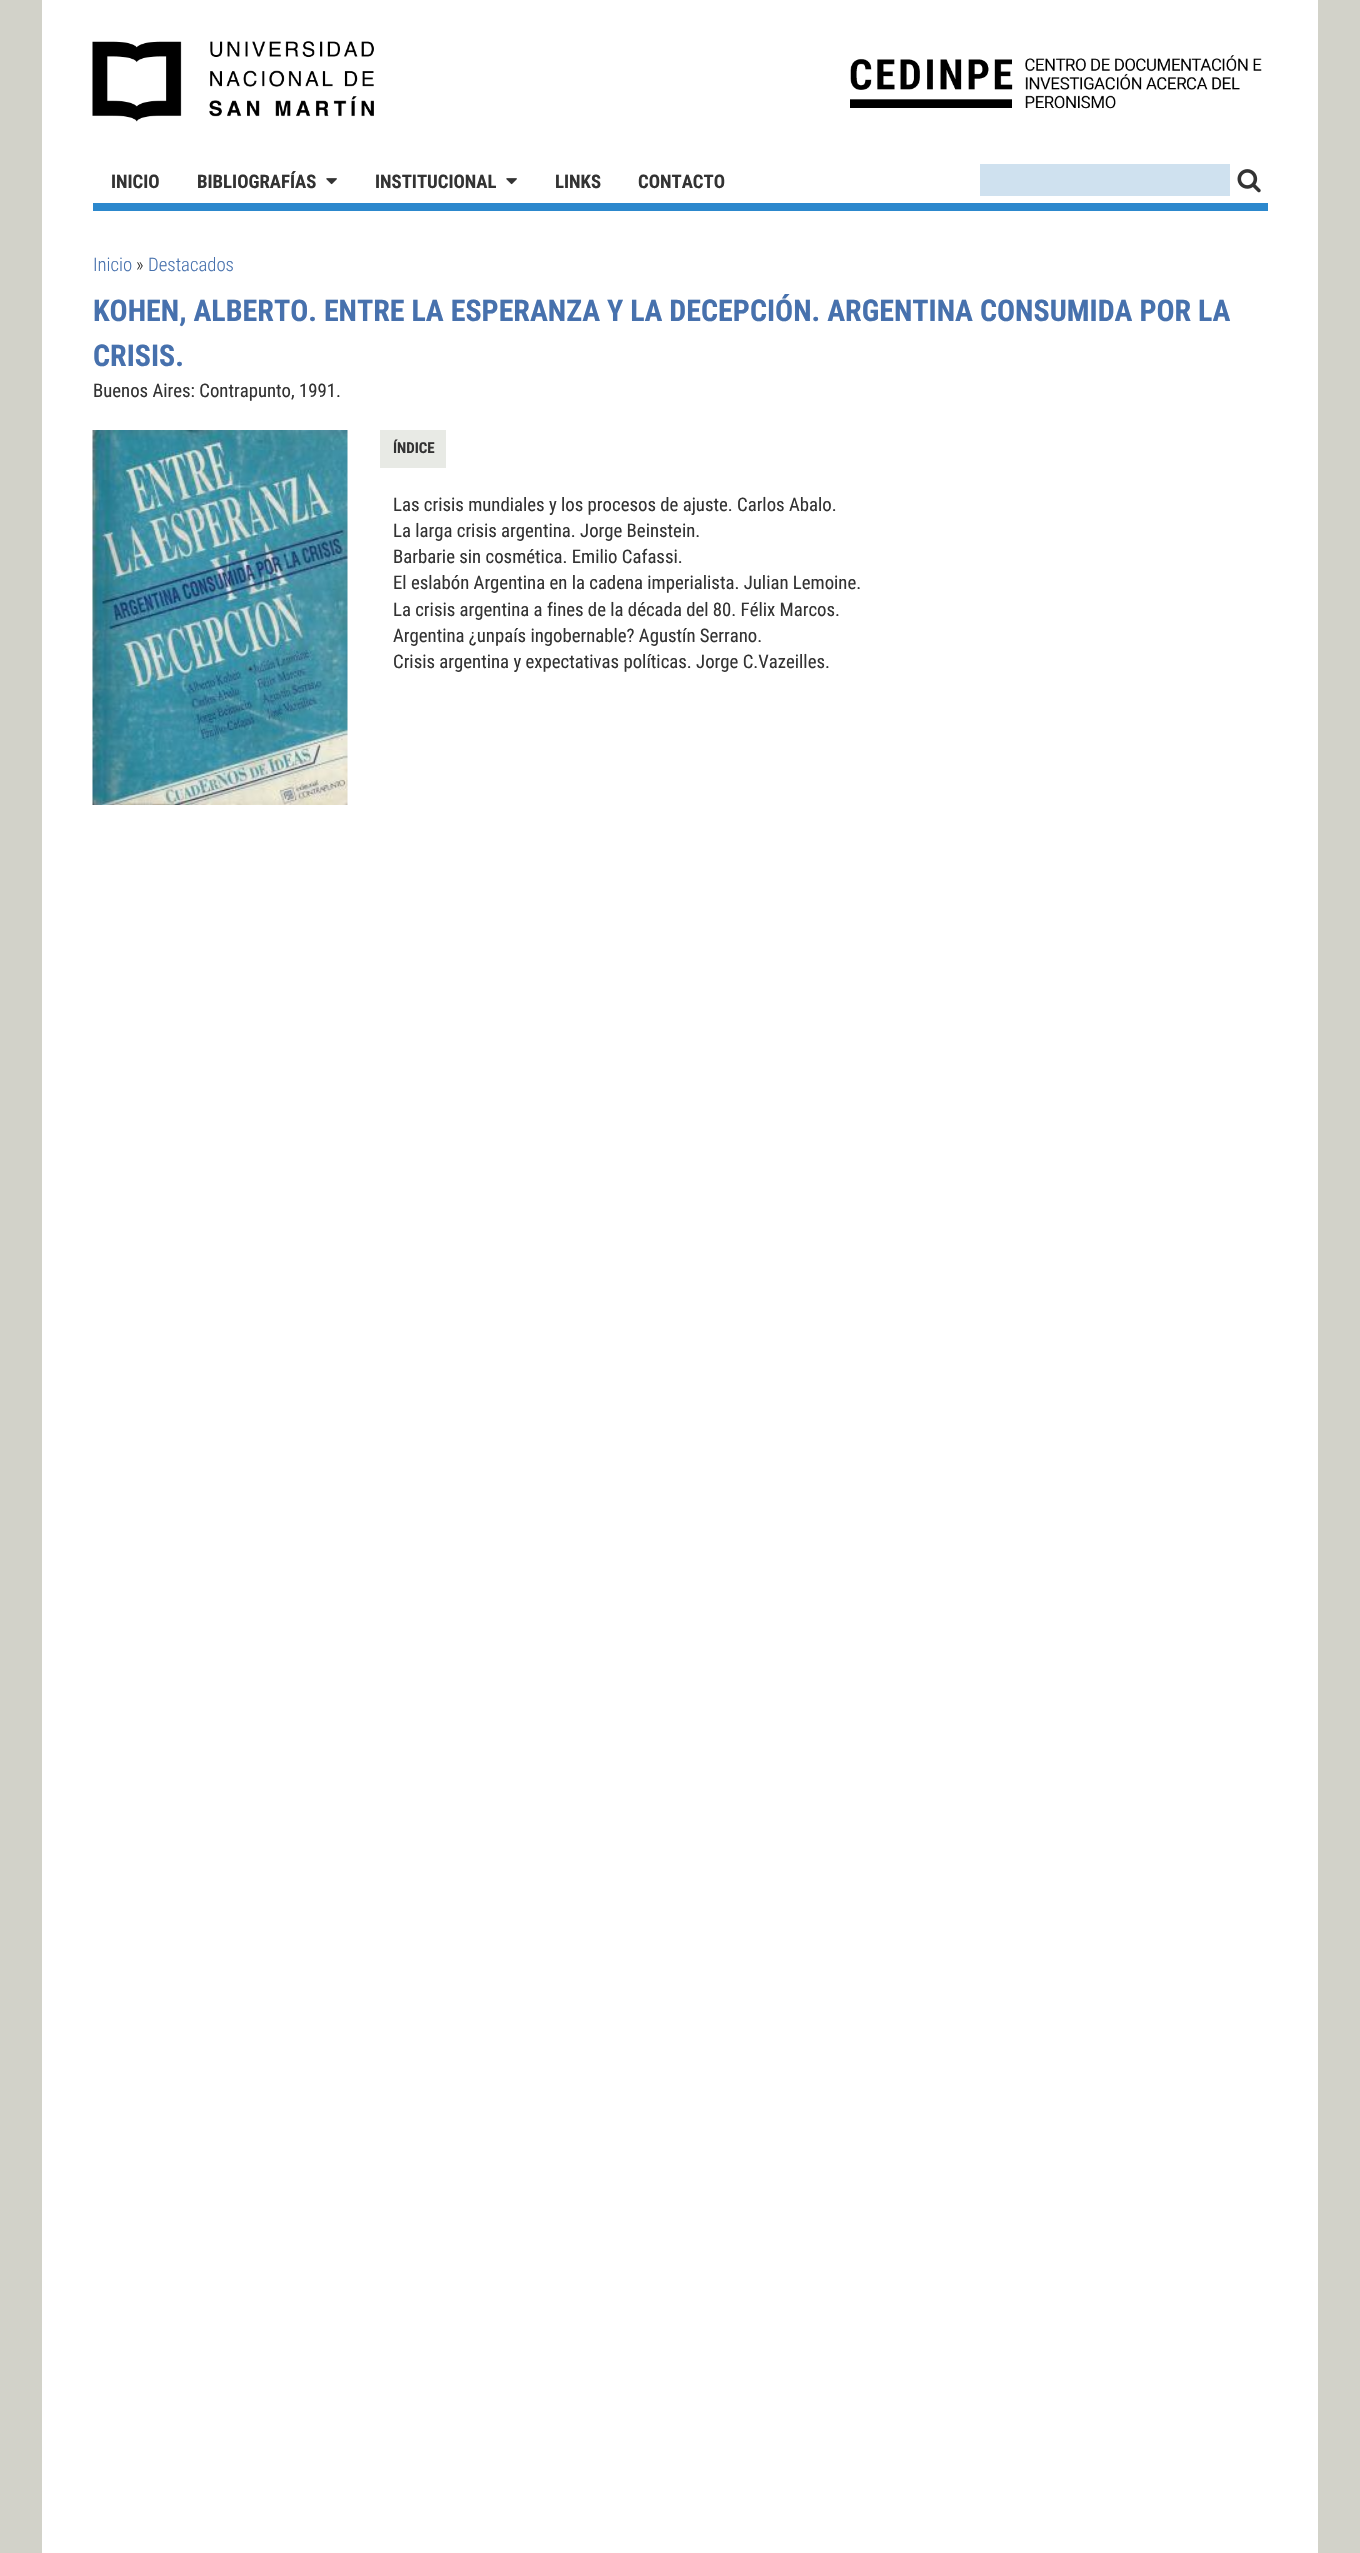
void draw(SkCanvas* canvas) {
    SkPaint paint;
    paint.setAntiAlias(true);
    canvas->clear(0xFFD2D2C9);
    paint.setColor(0xFFFFFFFF);
    canvas->drawRect(SkRect::MakeXYWH(42, 0, 1276, 2553), paint);
    canvas->drawImageRect(SkImages::DeferredFromEncodedData(SkData::MakeFromFileName("img1.png")), SkRect::MakeXYWH(92, 41, 282, 81), SkSamplingOptions());
    canvas->drawImageRect(SkImages::DeferredFromEncodedData(SkData::MakeFromFileName("img2.png")), SkRect::MakeXYWH(850, 55, 412, 54), SkSamplingOptions());
    paint.setColor(0xFF2C88CD);
    canvas->drawRect(SkRect::MakeXYWH(93, 203, 1175, 8), paint);
    SkFont font1(fontMgr->matchFamilyStyle("Roboto Condensed", SkFontStyle::Bold()), 18.75f);
    font1.setSubpixel(true);
    paint.setColor(0xFF333333);
    canvas->drawString("INICIO", 111, 188, font1, paint);
    canvas->drawString("BIBLIOGRAFÍAS", 197, 188, font1, paint);
    canvas->drawImageRect(SkImages::DeferredFromEncodedData(SkData::MakeFromFileName("img3.png")), SkRect::MakeXYWH(326, 178, 11, 7), SkSamplingOptions());
    canvas->drawString("INSTITUCIONAL", 375, 188, font1, paint);
    canvas->drawImageRect(SkImages::DeferredFromEncodedData(SkData::MakeFromFileName("img3.png")), SkRect::MakeXYWH(506, 178, 11, 7), SkSamplingOptions());
    canvas->drawString("LINKS", 555, 188, font1, paint);
    canvas->drawString("CONTACTO", 638, 188, font1, paint);
    paint.setColor(0xFFCFE1EF);
    canvas->drawRect(SkRect::MakeXYWH(980, 164, 250, 32), paint);
    canvas->drawImageRect(SkImages::DeferredFromEncodedData(SkData::MakeFromFileName("img4.png")), SkRect::MakeXYWH(1237, 169, 24, 24), SkSamplingOptions());
    SkFont font2(fontMgr->matchFamilyStyle("Roboto Condensed", SkFontStyle(300, SkFontStyle::kNormal_Width, SkFontStyle::kUpright_Slant)), 18.75f);
    font2.setSubpixel(true);
    paint.setColor(0xFF4771AD);
    canvas->drawString("Inicio", 93, 271, font2, paint);
    paint.setColor(0xFF333333);
    canvas->drawString("»", 136, 271, font2, paint);
    paint.setColor(0xFF4771AD);
    canvas->drawString("Destacados", 148, 271, font2, paint);
    SkFont font3(fontMgr->matchFamilyStyle("Roboto Condensed", SkFontStyle::Bold()), 30);
    font3.setSubpixel(true);
    canvas->drawString("KOHEN, ALBERTO. ENTRE LA ESPERANZA Y LA DECEPCIÓN. ARGENTINA CONSUMIDA POR LA", 93, 321, font3, paint);
    canvas->drawString("CRISIS.", 93, 366, font3, paint);
    SkFont font4(fontMgr->matchFamilyStyle("Roboto Condensed", SkFontStyle::Normal()), 18.75f);
    font4.setSubpixel(true);
    paint.setColor(0xFF333333);
    canvas->drawString("Buenos Aires: Contrapunto, 1991.", 93, 397, font4, paint);
    canvas->drawImageRect(SkImages::DeferredFromEncodedData(SkData::MakeFromFileName("img5.png")), SkRect::MakeXYWH(92, 430, 256, 375), SkSamplingOptions());
    paint.setColor(0xFFE8EAE5);
    canvas->drawRect(SkRect::MakeXYWH(380, 430, 66, 38), paint);
    SkFont font5(fontMgr->matchFamilyStyle("Roboto Condensed", SkFontStyle::Bold()), 15);
    font5.setSubpixel(true);
    paint.setColor(0xFF333333);
    canvas->drawString("ÍNDICE", 393, 453, font5, paint);
    canvas->drawString("Las crisis mundiales y los procesos de ajuste. Carlos Abalo.", 393, 511, font4, paint);
    canvas->drawString("La larga crisis argentina. Jorge Beinstein.", 393, 537, font4, paint);
    canvas->drawString("Barbarie sin cosmética. Emilio Cafassi.", 393, 563, font4, paint);
    canvas->drawString("El eslabón Argentina en la cadena imperialista. Julian Lemoine.", 393, 589, font4, paint);
    canvas->drawString("La crisis argentina a fines de la década del 80. Félix Marcos.", 393, 616, font4, paint);
    canvas->drawString("Argentina ¿unpaís ingobernable? Agustín Serrano.", 393, 642, font4, paint);
    canvas->drawString("Crisis argentina y expectativas políticas. Jorge C.Vazeilles.", 393, 668, font4, paint);
}
